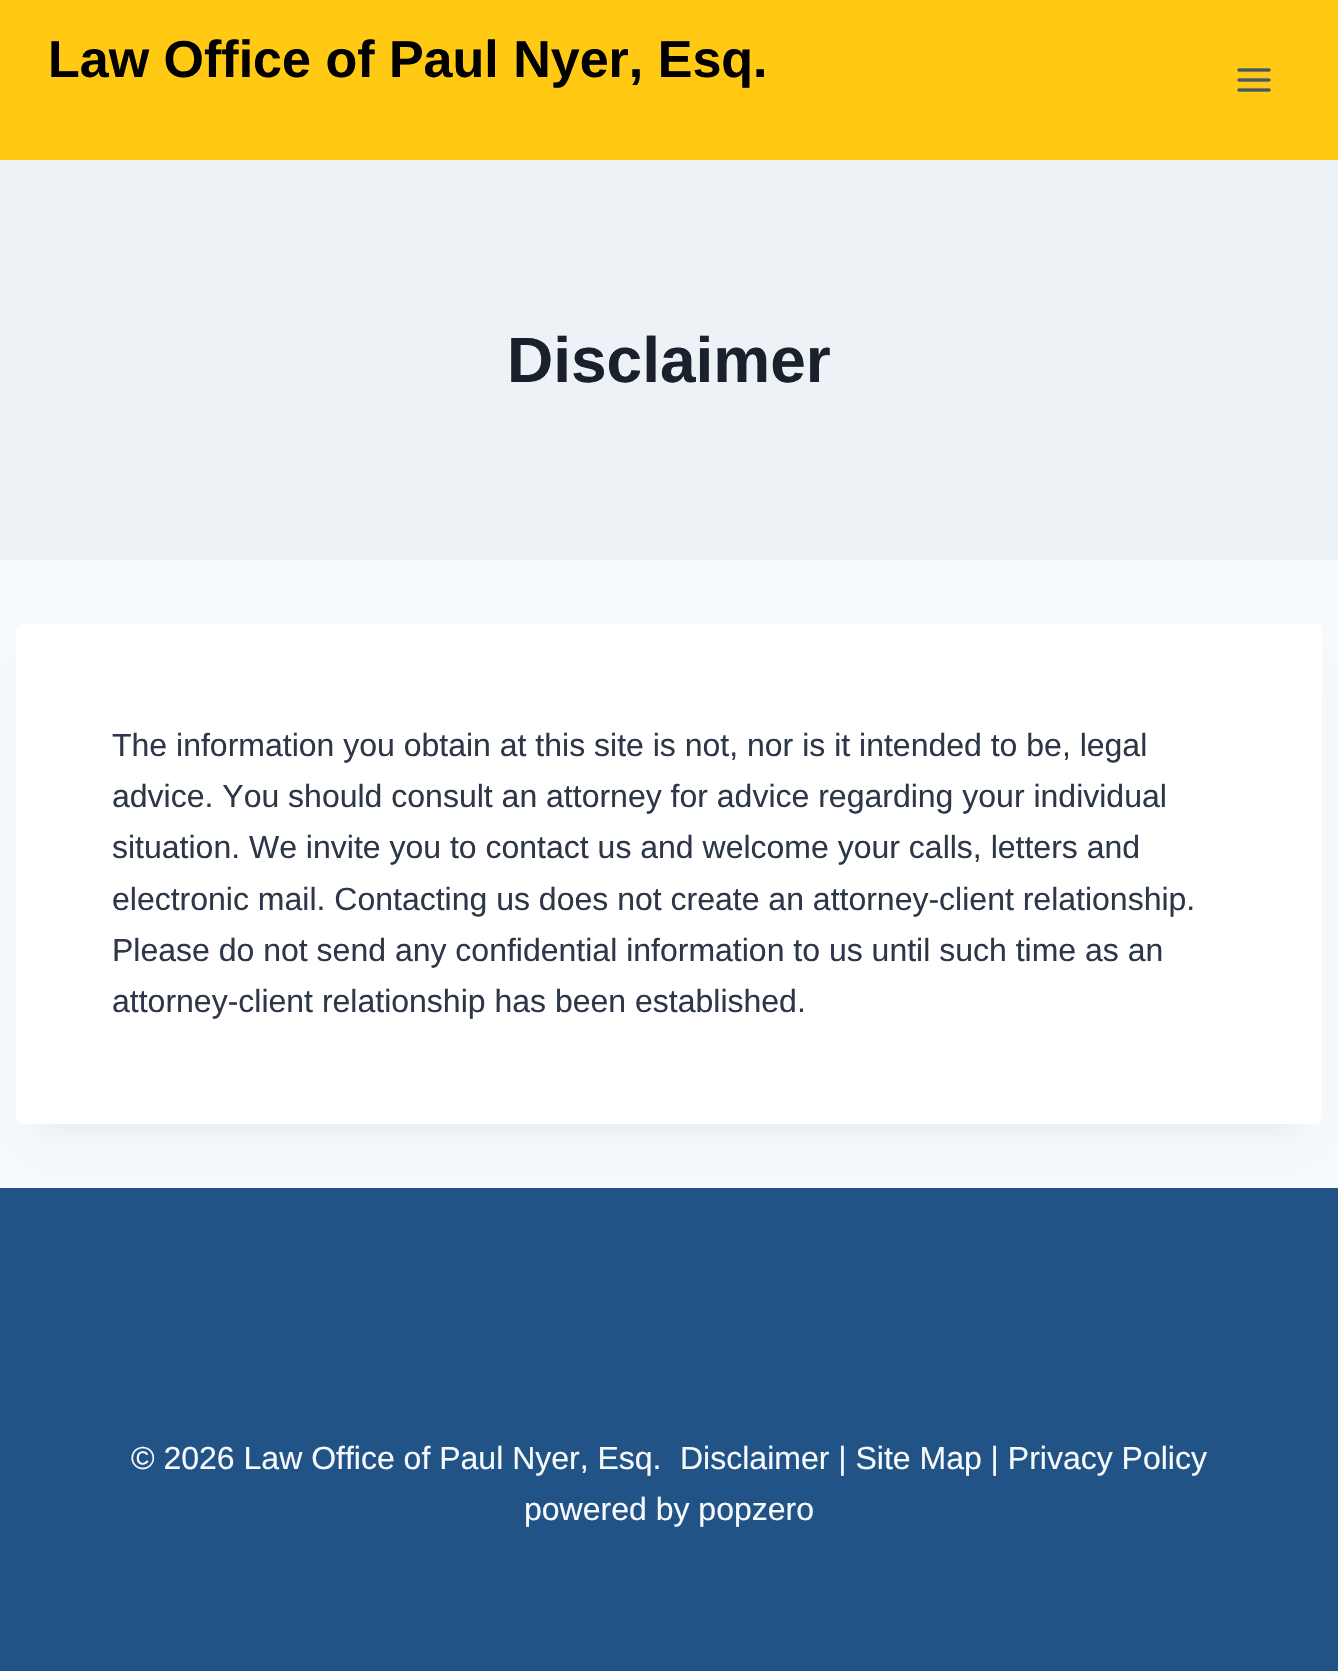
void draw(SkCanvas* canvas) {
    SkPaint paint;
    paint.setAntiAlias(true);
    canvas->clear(0xFFF7FAFC);
    paint.setColor(0xFFFFC914);
    canvas->drawRect(SkRect::MakeXYWH(0, 0, 1338, 160), paint);
    SkFont font1(fontMgr->matchFamilyStyle("Liberation Sans", SkFontStyle::Bold()), 52);
    font1.setSubpixel(true);
    paint.setColor(0xFF000000);
    canvas->drawString("Law Office of Paul Nyer, Esq.", 48, 77, font1, paint);
    canvas->drawImageRect(SkImages::DeferredFromEncodedData(SkData::MakeFromFileName("img1.png")), SkRect::MakeXYWH(1237, 68, 34, 24), SkSamplingOptions());
    paint.setColor(0xFFEDF2F7);
    canvas->drawRect(SkRect::MakeXYWH(0, 160, 1338, 400), paint);
    SkFont font2(fontMgr->matchFamilyStyle("Liberation Sans", SkFontStyle::Bold()), 64);
    font2.setSubpixel(true);
    paint.setColor(0xFF1A202C);
    canvas->drawString("Disclaimer", 507, 382, font2, paint);
    paint.setColor(0x0D000000);
    paint.setMaskFilter(SkMaskFilter::MakeBlur(kNormal_SkBlurStyle, 15));
    canvas->drawRect(SkRect::MakeXYWH(36, 674, 1266, 460), paint);
    paint.setMaskFilter(nullptr);
    paint.setColor(0xFFFFFFFF);
    canvas->drawRoundRect(SkRect::MakeXYWH(16, 624, 1306, 500), 8, 8, paint);
    SkFont font3(fontMgr->matchFamilyStyle("Liberation Sans", SkFontStyle::Normal()), 32);
    font3.setSubpixel(true);
    paint.setColor(0xFF2D3748);
    canvas->drawString("The information you obtain at this site is not, nor is it intended to be, legal", 112, 756, font3, paint);
    canvas->drawString("advice. You should consult an attorney for advice regarding your individual", 112, 807, font3, paint);
    canvas->drawString("situation. We invite you to contact us and welcome your calls, letters and", 112, 858, font3, paint);
    canvas->drawString("electronic mail. Contacting us does not create an attorney-client relationship.", 112, 910, font3, paint);
    canvas->drawString("Please do not send any confidential information to us until such time as an", 112, 961, font3, paint);
    canvas->drawString("attorney-client relationship has been established.", 112, 1012, font3, paint);
    paint.setColor(0xFF215387);
    canvas->drawRect(SkRect::MakeXYWH(0, 1188, 1338, 483), paint);
    paint.setColor(0xFFF7FAFC);
    canvas->drawString("© 2026 Law Office of Paul Nyer, Esq.", 131, 1469, font3, paint);
    canvas->drawString("Disclaimer | Site Map | Privacy Policy", 680, 1469, font3, paint);
    canvas->drawString("powered by popzero", 524, 1520, font3, paint);
}
